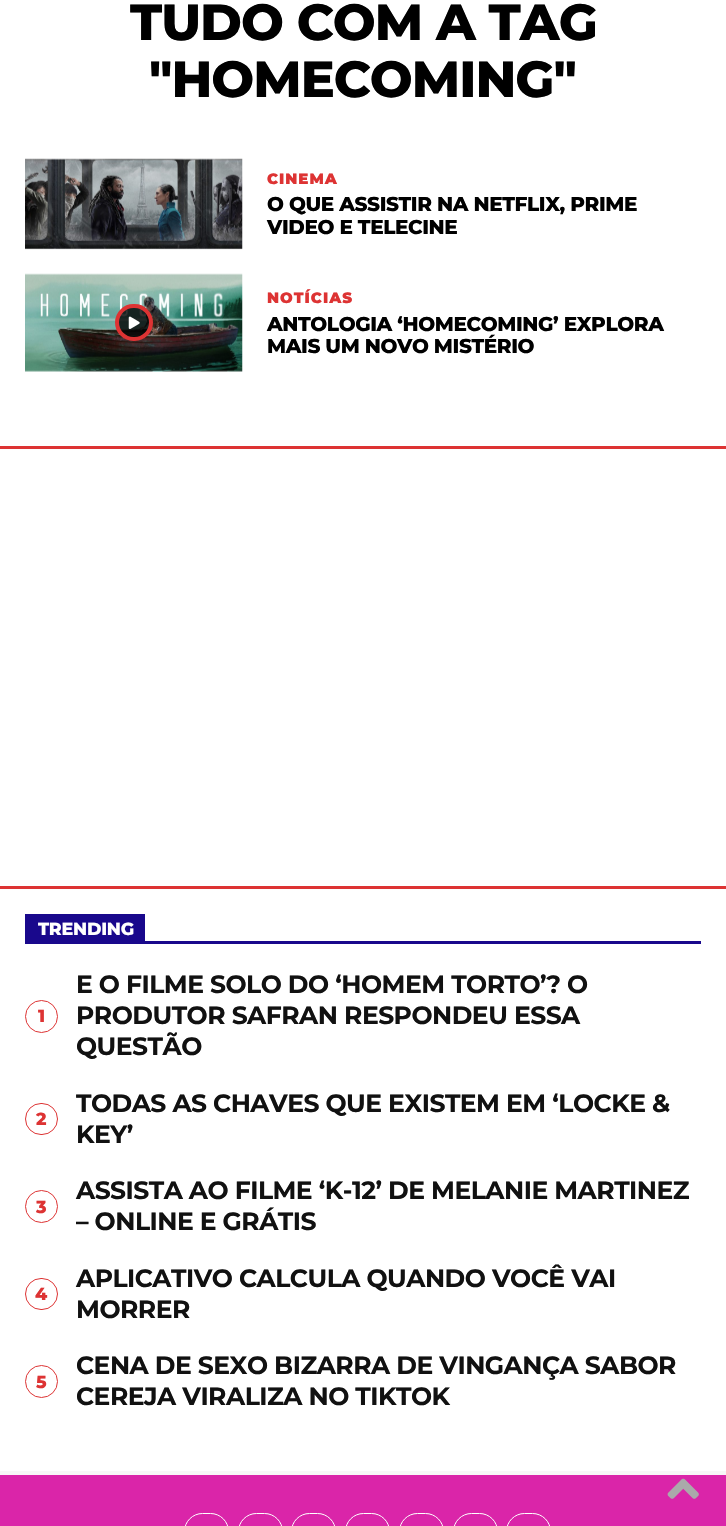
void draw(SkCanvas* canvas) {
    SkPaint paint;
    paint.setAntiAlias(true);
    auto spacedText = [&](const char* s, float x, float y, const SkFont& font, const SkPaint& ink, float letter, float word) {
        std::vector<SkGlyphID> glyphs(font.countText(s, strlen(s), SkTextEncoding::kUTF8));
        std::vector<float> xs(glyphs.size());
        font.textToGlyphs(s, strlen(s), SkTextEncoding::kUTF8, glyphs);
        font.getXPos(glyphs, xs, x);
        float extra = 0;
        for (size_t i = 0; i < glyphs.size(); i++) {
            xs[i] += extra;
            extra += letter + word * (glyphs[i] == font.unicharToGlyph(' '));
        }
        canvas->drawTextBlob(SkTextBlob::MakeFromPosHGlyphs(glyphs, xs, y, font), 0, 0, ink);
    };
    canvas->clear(0xFFFFFFFF);
    SkFont font1(fontMgr->matchFamilyStyle("Montserrat", SkFontStyle(800, SkFontStyle::kNormal_Width, SkFontStyle::kUpright_Slant)), 50.75f);
    font1.setSubpixel(true);
    paint.setColor(0xFF000000);
    spacedText("TUDO COM A TAG", 130, 40, font1, paint, -1, 0);
    spacedText("\"HOMECOMING\"", 149, 97, font1, paint, -1, 0);
    canvas->drawImageRect(SkImages::DeferredFromEncodedData(SkData::MakeFromFileName("img1.png")), SkRect::MakeXYWH(25, 158, 218, 92), SkSamplingOptions());
    SkFont font2(fontMgr->matchFamilyStyle("Montserrat", SkFontStyle(900, SkFontStyle::kNormal_Width, SkFontStyle::kUpright_Slant)), 15);
    font2.setSubpixel(true);
    paint.setColor(0xFFDD3333);
    spacedText("CINEMA", 267, 184, font2, paint, 1, 0);
    SkFont font3(fontMgr->matchFamilyStyle("Montserrat", SkFontStyle(800, SkFontStyle::kNormal_Width, SkFontStyle::kUpright_Slant)), 20);
    font3.setSubpixel(true);
    paint.setColor(0xFF000000);
    spacedText("O QUE ASSISTIR NA NETFLIX, PRIME", 267, 211, font3, paint, -0.4f, 0);
    spacedText("VIDEO E TELECINE", 267, 234, font3, paint, -0.4f, 0);
    canvas->drawImageRect(SkImages::DeferredFromEncodedData(SkData::MakeFromFileName("img2.png")), SkRect::MakeXYWH(25, 273, 218, 99), SkSamplingOptions());
    paint.setColor(0xCC000000);
    canvas->drawRoundRect(SkRect::MakeXYWH(117, 306, 34, 33), 16.5f, 16.5f, paint);
    paint.setStyle(SkPaint::kStroke_Style);
    paint.setStrokeWidth(4);
    paint.setColor(0xFFDD3333);
    canvas->drawRoundRect(SkRect::MakeXYWH(117, 306, 34, 33), 16.5f, 16.5f, paint);
    canvas->drawImageRect(SkImages::DeferredFromEncodedData(SkData::MakeFromFileName("img3.png")), SkRect::MakeXYWH(128, 316, 12, 13), SkSamplingOptions());
    paint.setStyle(SkPaint::kFill_Style);
    spacedText("NOTÍCIAS", 267, 303, font2, paint, 1, 0);
    paint.setColor(0xFF000000);
    spacedText("ANTOLOGIA ‘HOMECOMING’ EXPLORA", 267, 331, font3, paint, -0.4f, 0);
    spacedText("MAIS UM NOVO MISTÉRIO", 267, 353, font3, paint, -0.4f, 0);
    paint.setColor(0xFFDD3333);
    canvas->drawRect(SkRect::MakeXYWH(0, 446, 726, 3), paint);
    canvas->drawRect(SkRect::MakeXYWH(0, 886, 726, 3), paint);
    paint.setColor(0xFF19088C);
    canvas->drawRect(SkRect::MakeXYWH(25, 941, 676, 3), paint);
    canvas->drawRect(SkRect::MakeXYWH(25, 914, 120, 27), paint);
    SkFont font4(fontMgr->matchFamilyStyle("Montserrat", SkFontStyle(800, SkFontStyle::kNormal_Width, SkFontStyle::kUpright_Slant)), 17.5f);
    font4.setSubpixel(true);
    paint.setColor(0xFFFFFFFF);
    spacedText("TRENDING", 38, 935, font4, paint, -0.25f, 0);
    paint.setStyle(SkPaint::kStroke_Style);
    paint.setStrokeWidth(1);
    paint.setColor(0xFFDD3333);
    canvas->drawCircle(41.5f, 1016.5f, 16, paint);
    paint.setStyle(SkPaint::kFill_Style);
    canvas->drawString("1", 38, 1022, font4, paint);
    SkFont font5(fontMgr->matchFamilyStyle("Montserrat", SkFontStyle::Bold()), 25);
    font5.setSubpixel(true);
    paint.setColor(0xFF111111);
    spacedText("E O FILME SOLO DO ‘HOMEM TORTO’? O", 76, 993, font5, paint, -0.5f, 0);
    spacedText("PRODUTOR SAFRAN RESPONDEU ESSA", 76, 1024, font5, paint, -0.5f, 0);
    spacedText("QUESTÃO", 76, 1055, font5, paint, -0.5f, 0);
    paint.setStyle(SkPaint::kStroke_Style);
    paint.setColor(0xFFDD3333);
    canvas->drawRoundRect(SkRect::MakeXYWH(25.5f, 1103.5f, 32, 31), 15.5f, 15.5f, paint);
    paint.setStyle(SkPaint::kFill_Style);
    canvas->drawString("2", 36, 1125, font4, paint);
    paint.setColor(0xFF111111);
    spacedText("TODAS AS CHAVES QUE EXISTEM EM ‘LOCKE &", 76, 1112, font5, paint, -0.5f, 0);
    spacedText("KEY’", 76, 1143, font5, paint, -0.5f, 0);
    paint.setStyle(SkPaint::kStroke_Style);
    paint.setColor(0xFFDD3333);
    canvas->drawCircle(41.5f, 1206.5f, 16, paint);
    paint.setStyle(SkPaint::kFill_Style);
    canvas->drawString("3", 36, 1213, font4, paint);
    paint.setColor(0xFF111111);
    spacedText("ASSISTA AO FILME ‘K-12’ DE MELANIE MARTINEZ", 76, 1199, font5, paint, -0.5f, 0);
    spacedText("– ONLINE E GRÁTIS", 76, 1230, font5, paint, -0.5f, 0);
    paint.setStyle(SkPaint::kStroke_Style);
    paint.setColor(0xFFDD3333);
    canvas->drawRoundRect(SkRect::MakeXYWH(25.5f, 1278.5f, 32, 31), 15.5f, 15.5f, paint);
    paint.setStyle(SkPaint::kFill_Style);
    canvas->drawString("4", 35, 1300, font4, paint);
    paint.setColor(0xFF111111);
    spacedText("APLICATIVO CALCULA QUANDO VOCÊ VAI", 76, 1287, font5, paint, -0.5f, 0);
    spacedText("MORRER", 76, 1318, font5, paint, -0.5f, 0);
    paint.setStyle(SkPaint::kStroke_Style);
    paint.setColor(0xFFDD3333);
    canvas->drawCircle(41.5f, 1381.5f, 16, paint);
    paint.setStyle(SkPaint::kFill_Style);
    canvas->drawString("5", 36, 1388, font4, paint);
    paint.setColor(0xFF111111);
    spacedText("CENA DE SEXO BIZARRA DE VINGANÇA SABOR", 76, 1374, font5, paint, -0.5f, 0);
    spacedText("CEREJA VIRALIZA NO TIKTOK", 76, 1405, font5, paint, -0.5f, 0);
    paint.setColor(0xFFDA25A9);
    canvas->drawRect(SkRect::MakeXYWH(0, 1475, 726, 51), paint);
    paint.setColor(0xFFF7F7F7);
    canvas->drawRect(SkRect::MakeXYWH(0, 1471, 726, 4), paint);
    paint.setStyle(SkPaint::kStroke_Style);
    paint.setColor(0xFFFFFFFF);
    canvas->drawRoundRect(SkRect::MakeXYWH(184.5f, 1513.5f, 44, 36), 22, 22, paint);
    canvas->drawRoundRect(SkRect::MakeXYWH(238.5f, 1513.5f, 44, 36), 22, 22, paint);
    canvas->drawRoundRect(SkRect::MakeXYWH(291.5f, 1513.5f, 44, 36), 22, 22, paint);
    canvas->drawRoundRect(SkRect::MakeXYWH(345.5f, 1513.5f, 44, 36), 22, 22, paint);
    canvas->drawRoundRect(SkRect::MakeXYWH(399.5f, 1513.5f, 44, 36), 22, 22, paint);
    canvas->drawRoundRect(SkRect::MakeXYWH(453.5f, 1513.5f, 44, 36), 22, 22, paint);
    canvas->drawRoundRect(SkRect::MakeXYWH(506.5f, 1513.5f, 44, 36), 22, 22, paint);
    canvas->drawImageRect(SkImages::DeferredFromEncodedData(SkData::MakeFromFileName("img4.png")), SkRect::MakeXYWH(667, 1478, 32, 21), SkSamplingOptions());
}
